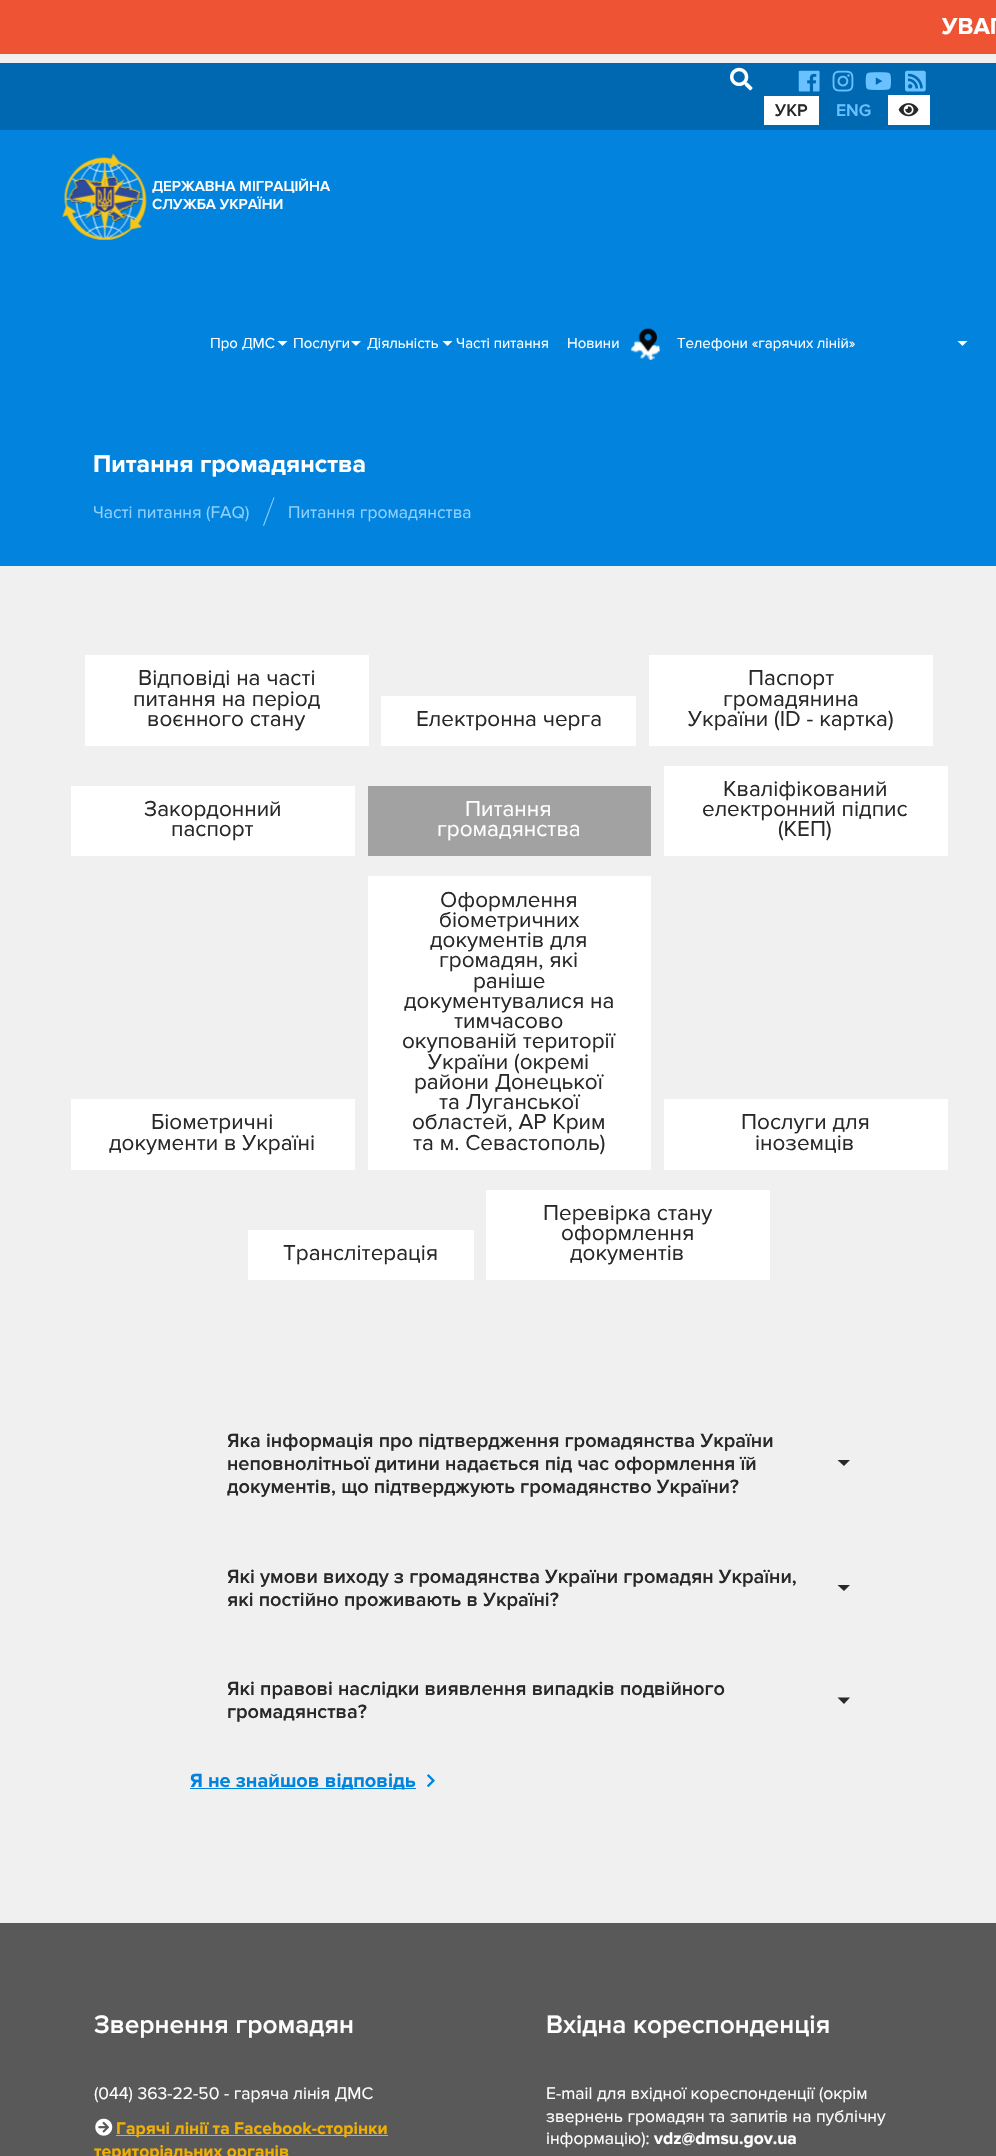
void draw(SkCanvas* canvas) {
    SkPaint paint;
    paint.setAntiAlias(true);
    canvas->clear(0xFFF1F0F0);
    paint.setColor(0xFFEE5433);
    canvas->drawRect(SkRect::MakeXYWH(0, 0, 996, 54), paint);
    SkFont font1(fontMgr->matchFamilyStyle("Proxima Nova", SkFontStyle::Bold()), 24);
    font1.setSubpixel(true);
    paint.setColor(0xFFFFFFFF);
    canvas->drawString("УВАГ", 942, 34, font1, paint);
    paint.setColor(0xFF0068B1);
    canvas->drawRect(SkRect::MakeXYWH(0, 63, 996, 67), paint);
    canvas->drawImageRect(SkImages::DeferredFromEncodedData(SkData::MakeFromFileName("img1.png")), SkRect::MakeXYWH(730, 67, 23, 24), SkSamplingOptions());
    canvas->drawImageRect(SkImages::DeferredFromEncodedData(SkData::MakeFromFileName("img2.png")), SkRect::MakeXYWH(798, 70, 22, 22), SkSamplingOptions());
    canvas->drawImageRect(SkImages::DeferredFromEncodedData(SkData::MakeFromFileName("img3.png")), SkRect::MakeXYWH(832, 70, 22, 22), SkSamplingOptions());
    canvas->drawImageRect(SkImages::DeferredFromEncodedData(SkData::MakeFromFileName("img4.png")), SkRect::MakeXYWH(865, 72, 26, 18), SkSamplingOptions());
    canvas->drawImageRect(SkImages::DeferredFromEncodedData(SkData::MakeFromFileName("img5.png")), SkRect::MakeXYWH(905, 70, 21, 22), SkSamplingOptions());
    paint.setColor(0xFFFFFFFF);
    canvas->drawRect(SkRect::MakeXYWH(764, 96, 55, 29), paint);
    SkFont font2(fontMgr->matchFamilyStyle("Proxima Nova", SkFontStyle(600, SkFontStyle::kNormal_Width, SkFontStyle::kUpright_Slant)), 17.5f);
    font2.setSubpixel(true);
    paint.setColor(0xFF282828);
    canvas->drawString("УКР", 775, 116, font2, paint);
    paint.setColor(0xFF69C1FF);
    canvas->drawString("ENG", 836, 116, font2, paint);
    paint.setColor(0xFFFFFFFF);
    canvas->drawRect(SkRect::MakeXYWH(888, 95, 42, 30), paint);
    canvas->drawImageRect(SkImages::DeferredFromEncodedData(SkData::MakeFromFileName("img6.png")), SkRect::MakeXYWH(898, 103, 21, 14), SkSamplingOptions());
    paint.setColor(0xFF0183DE);
    canvas->drawRect(SkRect::MakeXYWH(0, 130, 996, 436), paint);
    canvas->drawImageRect(SkImages::DeferredFromEncodedData(SkData::MakeFromFileName("img7.png")), SkRect::MakeXYWH(62, 153, 85, 87), SkSamplingOptions());
    SkFont font3(fontMgr->matchFamilyStyle("Proxima Nova", SkFontStyle(600, SkFontStyle::kNormal_Width, SkFontStyle::kUpright_Slant)), 15);
    font3.setSubpixel(true);
    paint.setColor(0xFFFFFFFF);
    canvas->drawString("ДЕРЖАВНА МІГРАЦІЙНА", 152, 191, font3, paint);
    canvas->drawString("СЛУЖБА УКРАЇНИ", 152, 209, font3, paint);
    SkFont font4(fontMgr->matchFamilyStyle("Proxima Nova", SkFontStyle::Normal()), 15);
    font4.setSubpixel(true);
    canvas->drawString("Про ДМС", 210, 348, font4, paint);
    canvas->drawPath(SkPathBuilder().moveTo(277.5f, 341).lineTo(287.5f, 341).lineTo(282.5f, 346).close().detach(), paint);
    canvas->drawString("Послуги", 293, 348, font4, paint);
    canvas->drawPath(SkPathBuilder().moveTo(351, 341).lineTo(361, 341).lineTo(356, 346).close().detach(), paint);
    canvas->drawString("Діяльність", 367, 348, font4, paint);
    canvas->drawPath(SkPathBuilder().moveTo(442.5f, 341).lineTo(452.5f, 341).lineTo(447.5f, 346).close().detach(), paint);
    canvas->drawString("Часті питання", 456, 348, font4, paint);
    canvas->drawString("Новини", 567, 348, font4, paint);
    canvas->drawImageRect(SkImages::DeferredFromEncodedData(SkData::MakeFromFileName("img8.png")), SkRect::MakeXYWH(631, 328, 29, 32), SkSamplingOptions());
    canvas->drawString("Телефони «гарячих ліній»", 677, 348, font4, paint);
    canvas->drawPath(SkPathBuilder().moveTo(957.5f, 341).lineTo(967.5f, 341).lineTo(962.5f, 346).close().detach(), paint);
    SkFont font5(fontMgr->matchFamilyStyle("Proxima Nova", SkFontStyle::Bold()), 25);
    font5.setSubpixel(true);
    canvas->drawString("Питання громадянства", 93, 472, font5, paint);
    SkFont font6(fontMgr->matchFamilyStyle("Proxima Nova", SkFontStyle::Normal()), 17.5f);
    font6.setSubpixel(true);
    paint.setColor(0xFF90D1FF);
    canvas->drawString("Часті питання (FAQ)", 93, 518, font6, paint);
    canvas->drawPath(SkPathBuilder().moveTo(273.5f, 497.5f).lineTo(274.5f, 497.5f).lineTo(264, 526).lineTo(263, 525.5f).close().detach(), paint);
    canvas->drawString("Питання громадянства", 288, 518, font6, paint);
    paint.setColor(0xFFFFFFFF);
    canvas->drawRect(SkRect::MakeXYWH(85, 655, 284, 91), paint);
    SkFont font7(fontMgr->matchFamilyStyle("Proxima Nova", SkFontStyle::Normal()), 22.5f);
    font7.setSubpixel(true);
    paint.setColor(0xFF282828);
    canvas->drawString("Відповіді на часті", 138, 685, font7, paint);
    canvas->drawString("питання на період", 133, 706, font7, paint);
    canvas->drawString("воєнного стану", 147, 726, font7, paint);
    paint.setColor(0xFFFFFFFF);
    canvas->drawRect(SkRect::MakeXYWH(381, 696, 255, 50), paint);
    paint.setColor(0xFF282828);
    canvas->drawString("Електронна черга", 416, 726, font7, paint);
    paint.setColor(0xFFFFFFFF);
    canvas->drawRect(SkRect::MakeXYWH(649, 655, 284, 91), paint);
    paint.setColor(0xFF282828);
    canvas->drawString("Паспорт", 748, 685, font7, paint);
    canvas->drawString("громадянина", 723, 706, font7, paint);
    canvas->drawString("України (ID - картка)", 688, 726, font7, paint);
    paint.setColor(0xFFFFFFFF);
    canvas->drawRect(SkRect::MakeXYWH(71, 786, 284, 70), paint);
    paint.setColor(0xFF282828);
    canvas->drawString("Закордонний", 144, 816, font7, paint);
    canvas->drawString("паспорт", 171, 836, font7, paint);
    paint.setColor(0xFFA2A2A2);
    canvas->drawRect(SkRect::MakeXYWH(368, 786, 283, 70), paint);
    paint.setColor(0xFFFFFFFF);
    canvas->drawString("Питання", 465, 816, font7, paint);
    canvas->drawString("громадянства", 437, 836, font7, paint);
    canvas->drawRect(SkRect::MakeXYWH(664, 766, 284, 90), paint);
    paint.setColor(0xFF282828);
    canvas->drawString("Кваліфікований", 723, 796, font7, paint);
    canvas->drawString("електронний підпис", 702, 816, font7, paint);
    canvas->drawString("(КЕП)", 778, 836, font7, paint);
    paint.setColor(0xFFFFFFFF);
    canvas->drawRect(SkRect::MakeXYWH(71, 1099, 284, 71), paint);
    paint.setColor(0xFF282828);
    canvas->drawString("Біометричні", 151, 1129, font7, paint);
    canvas->drawString("документи в Україні", 109, 1150, font7, paint);
    paint.setColor(0xFFFFFFFF);
    canvas->drawRect(SkRect::MakeXYWH(368, 876, 283, 294), paint);
    paint.setColor(0xFF282828);
    canvas->drawString("Оформлення", 440, 907, font7, paint);
    canvas->drawString("біометричних", 439, 927, font7, paint);
    canvas->drawString("документів для", 430, 947, font7, paint);
    canvas->drawString("громадян, які", 439, 967, font7, paint);
    canvas->drawString("раніше", 473, 988, font7, paint);
    canvas->drawString("документувалися на", 404, 1008, font7, paint);
    canvas->drawString("тимчасово", 454, 1028, font7, paint);
    canvas->drawString("окупованій території", 402, 1048, font7, paint);
    canvas->drawString("України (окремі", 428, 1069, font7, paint);
    canvas->drawString("райони Донецької", 414, 1089, font7, paint);
    canvas->drawString("та Луганської", 439, 1109, font7, paint);
    canvas->drawString("областей, АР Крим", 412, 1129, font7, paint);
    canvas->drawString("та м. Севастополь)", 413, 1150, font7, paint);
    paint.setColor(0xFFFFFFFF);
    canvas->drawRect(SkRect::MakeXYWH(664, 1099, 284, 71), paint);
    paint.setColor(0xFF282828);
    canvas->drawString("Послуги для", 741, 1129, font7, paint);
    canvas->drawString("іноземців", 755, 1150, font7, paint);
    paint.setColor(0xFFFFFFFF);
    canvas->drawRect(SkRect::MakeXYWH(248, 1230, 226, 50), paint);
    paint.setColor(0xFF282828);
    canvas->drawString("Транслітерація", 283, 1260, font7, paint);
    paint.setColor(0xFFFFFFFF);
    canvas->drawRect(SkRect::MakeXYWH(486, 1190, 284, 90), paint);
    paint.setColor(0xFF282828);
    canvas->drawString("Перевірка стану", 543, 1220, font7, paint);
    canvas->drawString("оформлення", 561, 1240, font7, paint);
    canvas->drawString("документів", 570, 1260, font7, paint);
    SkFont font8(fontMgr->matchFamilyStyle("Proxima Nova", SkFontStyle(600, SkFontStyle::kNormal_Width, SkFontStyle::kUpright_Slant)), 20);
    font8.setSubpixel(true);
    canvas->drawString("Яка інформація про підтвердження громадянства України", 227, 1447, font8, paint);
    canvas->drawString("неповнолітньої дитини надається під час оформлення їй", 227, 1470, font8, paint);
    canvas->drawPath(SkPathBuilder().moveTo(837.5f, 1460).lineTo(850, 1460).lineTo(844, 1466).close().detach(), paint);
    canvas->drawString("документів, що підтверджують громадянство України?", 227, 1493, font8, paint);
    canvas->drawString("Які умови виходу з громадянства України громадян України,", 227, 1583, font8, paint);
    canvas->drawPath(SkPathBuilder().moveTo(837.5f, 1585).lineTo(850, 1585).lineTo(844, 1591).close().detach(), paint);
    canvas->drawString("які постійно проживають в Україні?", 227, 1606, font8, paint);
    canvas->drawString("Які правові наслідки виявлення випадків подвійного", 227, 1695, font8, paint);
    canvas->drawPath(SkPathBuilder().moveTo(837.5f, 1697.5f).lineTo(850, 1697.5f).lineTo(844, 1704).close().detach(), paint);
    canvas->drawString("громадянства?", 227, 1718, font8, paint);
    paint.setColor(0xFF0183DE);
    canvas->drawRect(SkRect::MakeXYWH(190, 1788, 226, 1), paint);
    SkFont font9(fontMgr->matchFamilyStyle("Proxima Nova", SkFontStyle::Bold()), 20);
    font9.setSubpixel(true);
    canvas->drawString("Я не знайшов відповідь", 190, 1787, font9, paint);
    canvas->drawImageRect(SkImages::DeferredFromEncodedData(SkData::MakeFromFileName("img9.png")), SkRect::MakeXYWH(427, 1774, 8, 13), SkSamplingOptions());
    paint.setColor(0xFF595959);
    canvas->drawRect(SkRect::MakeXYWH(0, 1923, 996, 233), paint);
    SkFont font10(fontMgr->matchFamilyStyle("Proxima Nova", SkFontStyle(600, SkFontStyle::kNormal_Width, SkFontStyle::kUpright_Slant)), 26.25f);
    font10.setSubpixel(true);
    paint.setColor(0xFFFFFFFF);
    canvas->drawString("Звернення громадян", 94, 2033, font10, paint);
    canvas->drawString("(044) 363-22-50 - гаряча лінія ДМС", 94, 2099, font6, paint);
    canvas->drawImageRect(SkImages::DeferredFromEncodedData(SkData::MakeFromFileName("img10.png")), SkRect::MakeXYWH(95, 2118, 18, 18), SkSamplingOptions());
    paint.setColor(0xFFEFAF03);
    canvas->drawRect(SkRect::MakeXYWH(116, 2135, 272, 1), paint);
    SkFont font11(fontMgr->matchFamilyStyle("Proxima Nova", SkFontStyle::Bold()), 17.5f);
    font11.setSubpixel(true);
    canvas->drawString("Гарячі лінії та Facebook-сторінки", 116, 2134, font11, paint);
    canvas->drawString("територіальних органів", 94, 2157, font11, paint);
    paint.setColor(0xFFFFFFFF);
    canvas->drawString("Вхідна кореспонденція", 546, 2033, font10, paint);
    canvas->drawString("E-mail для вхідної кореспонденції (окрім", 546, 2099, font6, paint);
    canvas->drawString("звернень громадян та запитів на публічну", 546, 2122, font6, paint);
    canvas->drawString("інформацію):", 546, 2144, font6, paint);
    canvas->drawString("vdz@dmsu.gov.ua", 654, 2144, font11, paint);
}
